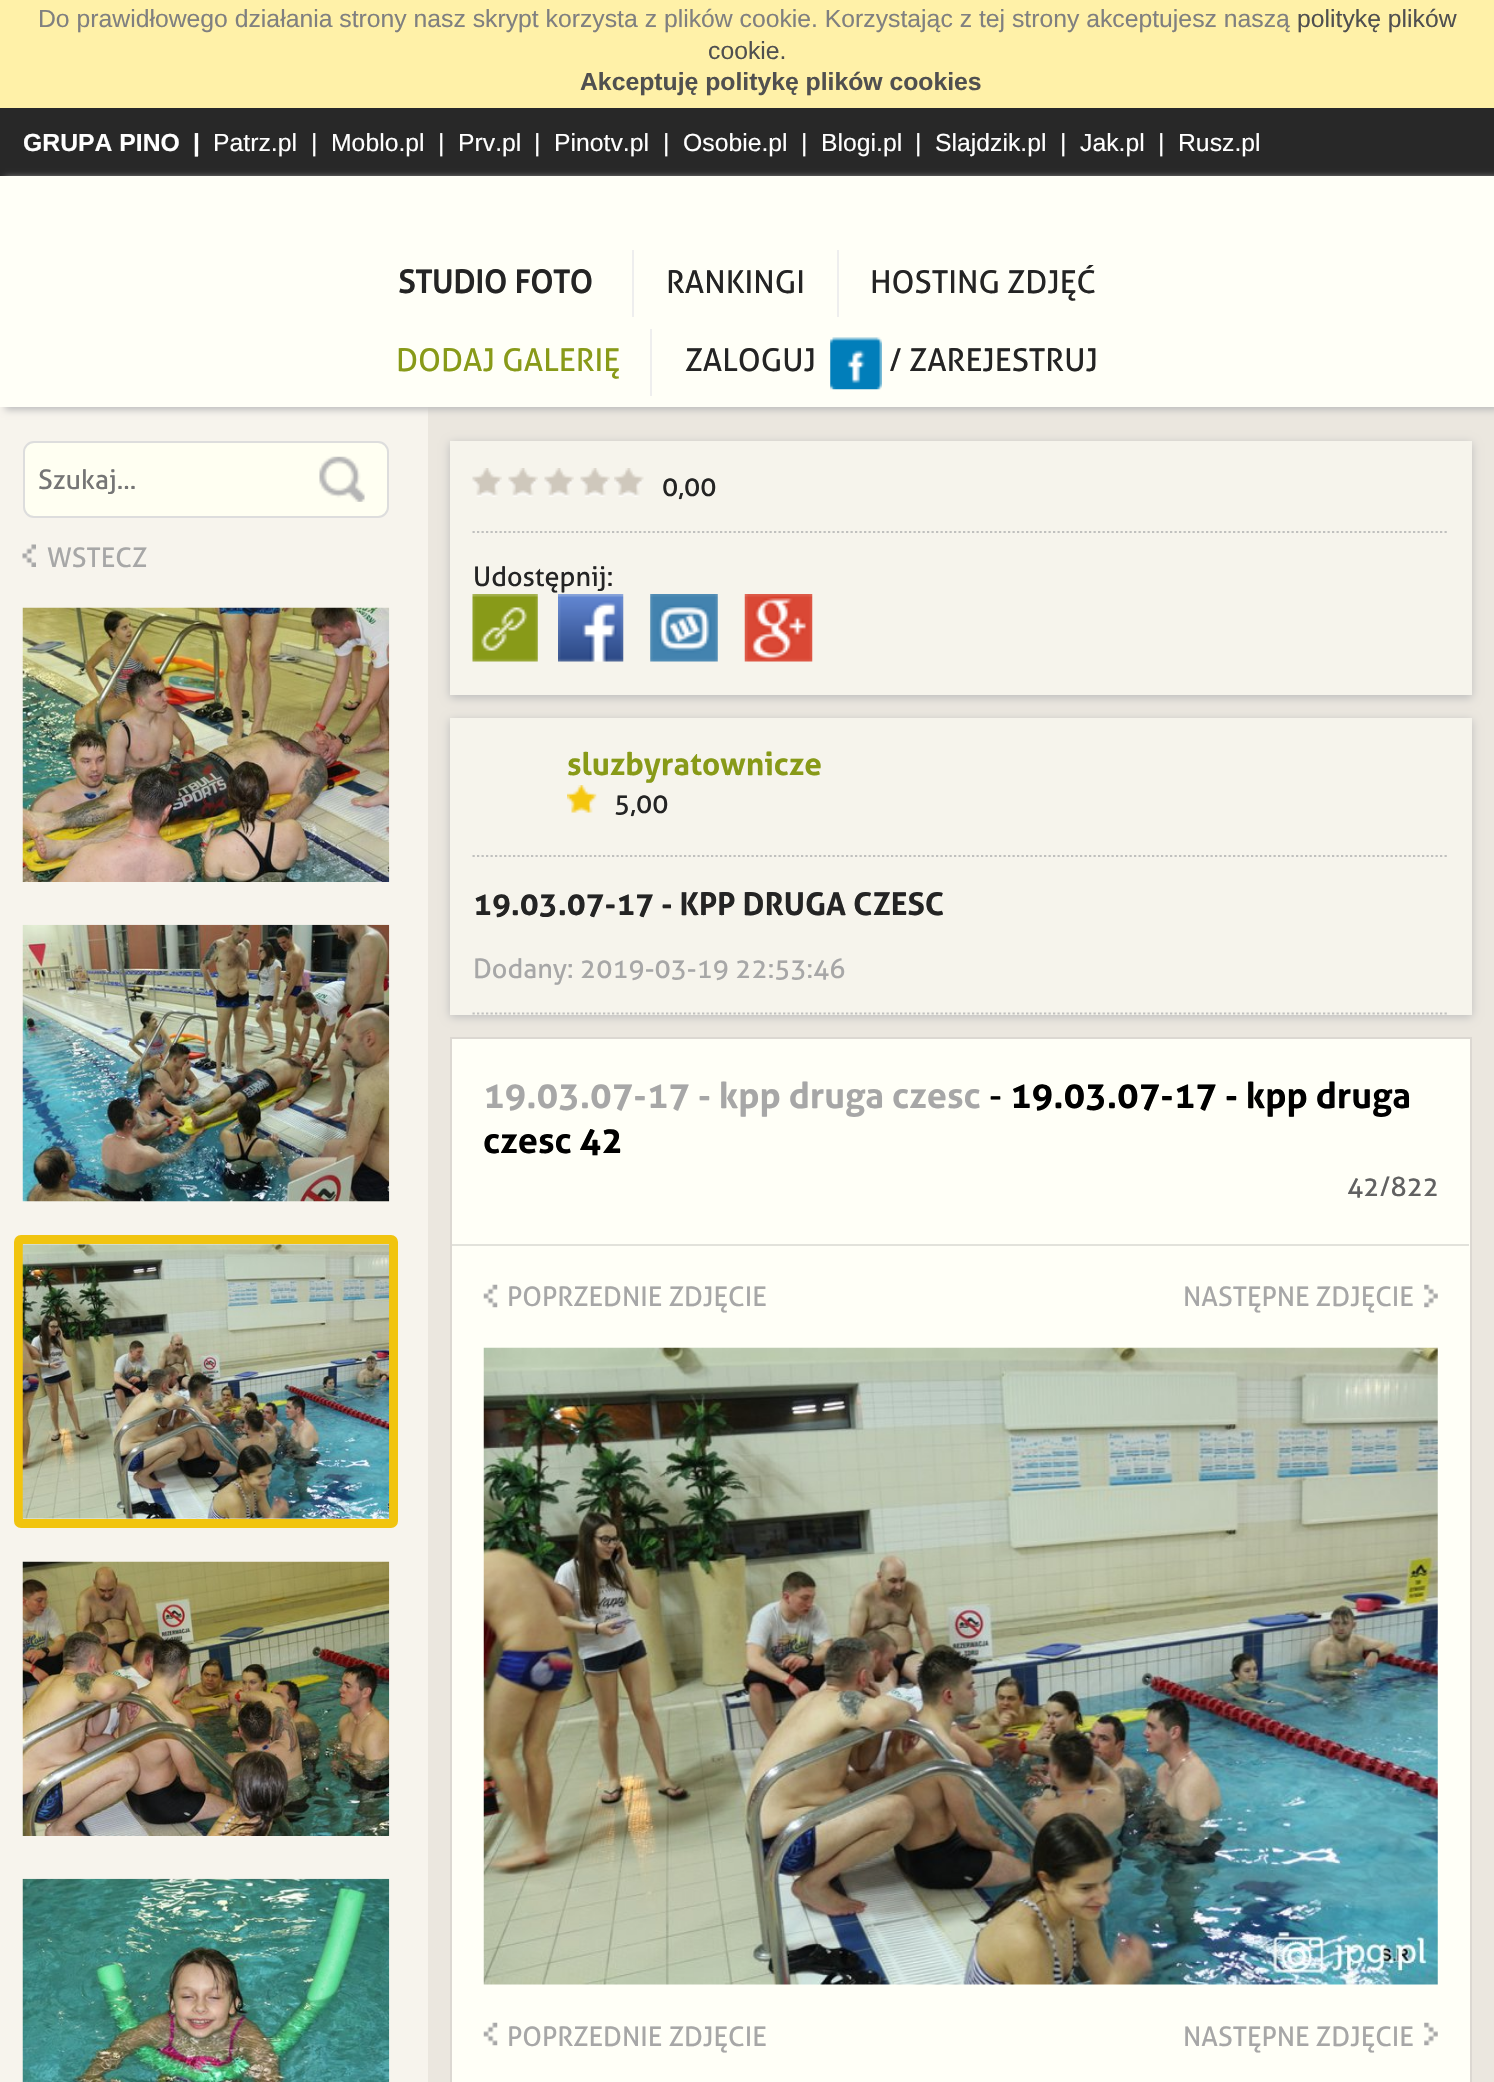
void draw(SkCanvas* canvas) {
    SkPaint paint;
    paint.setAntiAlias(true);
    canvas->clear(0xFF282828);
    paint.setColor(0xFFFFF1A8);
    canvas->drawRect(SkRect::MakeXYWH(0, 0, 1494, 108), paint);
    SkFont font1(fontMgr->matchFamilyStyle("Liberation Sans", SkFontStyle::Normal()), 24.75f);
    font1.setSubpixel(true);
    paint.setColor(0xFF808080);
    canvas->drawString("Do prawidłowego działania strony nasz skrypt korzysta z plików cookie. Korzystając z tej strony akceptujesz naszą", 38, 27, font1, paint);
    paint.setColor(0xFF505050);
    canvas->drawString("politykę plików", 1297, 27, font1, paint);
    canvas->drawString("cookie.", 708, 59, font1, paint);
    SkFont font2(fontMgr->matchFamilyStyle("Liberation Sans", SkFontStyle::Bold()), 24.75f);
    font2.setSubpixel(true);
    canvas->drawString("Akceptuję politykę plików cookies", 580, 90, font2, paint);
    paint.setColor(0xFFFFFFFF);
    canvas->drawString("GRUPA PINO", 23, 151, font2, paint);
    canvas->drawString("|", 193, 151, font2, paint);
    canvas->drawString("Patrz.pl", 213, 151, font1, paint);
    canvas->drawString("|", 311, 151, font1, paint);
    canvas->drawString("Moblo.pl", 331, 151, font1, paint);
    canvas->drawString("|", 438, 151, font1, paint);
    canvas->drawString("Prv.pl", 458, 151, font1, paint);
    canvas->drawString("|", 534, 151, font1, paint);
    canvas->drawString("Pinotv.pl", 554, 151, font1, paint);
    canvas->drawString("|", 663, 151, font1, paint);
    canvas->drawString("Osobie.pl", 683, 151, font1, paint);
    canvas->drawString("|", 801, 151, font1, paint);
    canvas->drawString("Blogi.pl", 821, 151, font1, paint);
    canvas->drawString("|", 915, 151, font1, paint);
    canvas->drawString("Slajdzik.pl", 935, 151, font1, paint);
    canvas->drawString("|", 1060, 151, font1, paint);
    canvas->drawString("Jak.pl", 1080, 151, font1, paint);
    canvas->drawString("|", 1158, 151, font1, paint);
    canvas->drawString("Rusz.pl", 1178, 151, font1, paint);
    paint.setColor(0xFFF7F4ED);
    canvas->drawRect(SkRect::MakeXYWH(0, 407, 428, 1675), paint);
    paint.setColor(0xFFEBE7DF);
    canvas->drawRect(SkRect::MakeXYWH(428, 407, 1066, 1675), paint);
    paint.setColor(0xFFBDBDBD);
    paint.setMaskFilter(SkMaskFilter::MakeBlur(kNormal_SkBlurStyle, 3.5f));
    canvas->drawRect(SkRect::MakeXYWH(5, 178, 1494, 232), paint);
    paint.setMaskFilter(nullptr);
    paint.setColor(0xFFFFFFF7);
    canvas->drawRect(SkRect::MakeXYWH(0, 176, 1494, 231), paint);
    SkFont font3(fontMgr->matchFamilyStyle("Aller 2", SkFontStyle::Bold()), 31.5f);
    font3.setSubpixel(true);
    paint.setColor(0xFF242424);
    canvas->drawString("STUDIO FOTO", 398, 293, font3, paint);
    paint.setColor(0xFFEEEEEE);
    canvas->drawRect(SkRect::MakeXYWH(632, 250, 2, 67), paint);
    SkFont font4(fontMgr->matchFamilyStyle("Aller", SkFontStyle::Normal()), 31.5f);
    font4.setSubpixel(true);
    paint.setColor(0xFF242424);
    canvas->drawString("RANKINGI", 666, 293, font4, paint);
    paint.setColor(0xFFEEEEEE);
    canvas->drawRect(SkRect::MakeXYWH(837, 250, 2, 67), paint);
    paint.setColor(0xFF242424);
    canvas->drawString("HOSTING ZDJĘĆ", 870, 293, font4, paint);
    paint.setColor(0xFF889A18);
    canvas->drawString("DODAJ GALERIĘ", 396, 371, font4, paint);
    paint.setColor(0xFFEEEEEE);
    canvas->drawRect(SkRect::MakeXYWH(650, 329, 2, 67), paint);
    paint.setColor(0xFF242424);
    canvas->drawString("ZALOGUJ", 685, 371, font4, paint);
    canvas->drawImageRect(SkImages::DeferredFromEncodedData(SkData::MakeFromFileName("img1.png")), SkRect::MakeXYWH(830, 337, 52, 53), SkSamplingOptions());
    canvas->drawString("/ ZAREJESTRUJ", 889, 371, font4, paint);
    paint.setColor(0xFFFFFFF2);
    canvas->drawRoundRect(SkRect::MakeXYWH(24, 442, 364, 75), 10, 10, paint);
    paint.setStyle(SkPaint::kStroke_Style);
    paint.setStrokeWidth(2);
    paint.setColor(0xFFDDDDDD);
    canvas->drawRoundRect(SkRect::MakeXYWH(24, 442, 364, 75), 10, 10, paint);
    SkFont font5(fontMgr->matchFamilyStyle("Aller", SkFontStyle::Normal()), 27);
    font5.setSubpixel(true);
    paint.setStyle(SkPaint::kFill_Style);
    paint.setColor(0xFF757575);
    canvas->drawString("Szukaj...", 38, 489, font5, paint);
    canvas->drawImageRect(SkImages::DeferredFromEncodedData(SkData::MakeFromFileName("img2.png")), SkRect::MakeXYWH(319, 456, 46, 46), SkSamplingOptions());
    canvas->drawImageRect(SkImages::DeferredFromEncodedData(SkData::MakeFromFileName("img3.png")), SkRect::MakeXYWH(22, 544, 14, 23), SkSamplingOptions());
    paint.setColor(0xFFA7A7A7);
    canvas->drawString("WSTECZ", 47, 567, font5, paint);
    canvas->drawImageRect(SkImages::DeferredFromEncodedData(SkData::MakeFromFileName("img4.png")), SkRect::MakeXYWH(22, 607, 368, 275), SkSamplingOptions());
    canvas->drawImageRect(SkImages::DeferredFromEncodedData(SkData::MakeFromFileName("img5.png")), SkRect::MakeXYWH(22, 924, 368, 278), SkSamplingOptions());
    paint.setStyle(SkPaint::kStroke_Style);
    paint.setStrokeWidth(9);
    paint.setColor(0xFFF1C40F);
    canvas->drawRoundRect(SkRect::MakeXYWH(18.5f, 1239.5f, 375, 284), 2.5f, 2.5f, paint);
    canvas->drawImageRect(SkImages::DeferredFromEncodedData(SkData::MakeFromFileName("img6.png")), SkRect::MakeXYWH(22, 1244, 368, 275), SkSamplingOptions());
    canvas->drawImageRect(SkImages::DeferredFromEncodedData(SkData::MakeFromFileName("img7.png")), SkRect::MakeXYWH(22, 1561, 368, 275), SkSamplingOptions());
    canvas->drawImageRect(SkImages::DeferredFromEncodedData(SkData::MakeFromFileName("img8.png")), SkRect::MakeXYWH(22, 1878, 368, 204), SkSamplingOptions());
    paint.setStyle(SkPaint::kFill_Style);
    paint.setColor(0xFFBDBDBD);
    paint.setMaskFilter(SkMaskFilter::MakeBlur(kNormal_SkBlurStyle, 4.5f));
    canvas->drawRect(SkRect::MakeXYWH(450, 443, 1022, 255), paint);
    paint.setMaskFilter(nullptr);
    paint.setColor(0xFFF6F4EC);
    canvas->drawRect(SkRect::MakeXYWH(450, 441, 1022, 254), paint);
    paint.setStyle(SkPaint::kStroke_Style);
    paint.setStrokeWidth(2.2f);
    paint.setColor(0xFFC0C0BE);
    paint.setPathEffect(SkDashPathEffect::Make({{2.25f, 2.25f}}, 0));
    canvas->drawPath(SkPathBuilder().moveTo(472.5f, 532).lineTo(1449, 532).detach(), paint);
    paint.setPathEffect(nullptr);
    canvas->drawImageRect(SkImages::DeferredFromEncodedData(SkData::MakeFromFileName("img9.png")), SkRect::MakeXYWH(472, 468, 30, 29), SkSamplingOptions());
    canvas->drawImageRect(SkImages::DeferredFromEncodedData(SkData::MakeFromFileName("img10.png")), SkRect::MakeXYWH(508, 468, 30, 29), SkSamplingOptions());
    canvas->drawImageRect(SkImages::DeferredFromEncodedData(SkData::MakeFromFileName("img9.png")), SkRect::MakeXYWH(544, 468, 30, 29), SkSamplingOptions());
    canvas->drawImageRect(SkImages::DeferredFromEncodedData(SkData::MakeFromFileName("img10.png")), SkRect::MakeXYWH(580, 468, 30, 29), SkSamplingOptions());
    canvas->drawImageRect(SkImages::DeferredFromEncodedData(SkData::MakeFromFileName("img11.png")), SkRect::MakeXYWH(614, 468, 30, 29), SkSamplingOptions());
    paint.setStyle(SkPaint::kFill_Style);
    paint.setColor(0xFF242424);
    canvas->drawString("0,00", 662, 496, font5, paint);
    canvas->drawString("Udostępnij:", 473, 586, font5, paint);
    canvas->drawImageRect(SkImages::DeferredFromEncodedData(SkData::MakeFromFileName("img12.png")), SkRect::MakeXYWH(472, 594, 66, 68), SkSamplingOptions());
    canvas->drawImageRect(SkImages::DeferredFromEncodedData(SkData::MakeFromFileName("img13.png")), SkRect::MakeXYWH(558, 594, 66, 68), SkSamplingOptions());
    canvas->drawImageRect(SkImages::DeferredFromEncodedData(SkData::MakeFromFileName("img14.png")), SkRect::MakeXYWH(650, 594, 68, 68), SkSamplingOptions());
    canvas->drawImageRect(SkImages::DeferredFromEncodedData(SkData::MakeFromFileName("img15.png")), SkRect::MakeXYWH(744, 594, 69, 68), SkSamplingOptions());
    paint.setColor(0xFFBDBDBD);
    paint.setMaskFilter(SkMaskFilter::MakeBlur(kNormal_SkBlurStyle, 4.5f));
    canvas->drawRect(SkRect::MakeXYWH(450, 720, 1022, 297), paint);
    paint.setMaskFilter(nullptr);
    paint.setColor(0xFFF6F4EC);
    canvas->drawRect(SkRect::MakeXYWH(450, 718, 1022, 297), paint);
    paint.setStyle(SkPaint::kStroke_Style);
    paint.setColor(0xFFC0C0BE);
    paint.setPathEffect(SkDashPathEffect::Make({{2.25f, 2.25f}}, 0));
    canvas->drawPath(SkPathBuilder().moveTo(472.5f, 856).lineTo(1449, 856).detach(), paint);
    paint.setPathEffect(nullptr);
    SkFont font6(fontMgr->matchFamilyStyle("Aller", SkFontStyle::Bold()), 31.5f);
    font6.setSubpixel(true);
    paint.setStyle(SkPaint::kFill_Style);
    paint.setColor(0xFF889A18);
    canvas->drawString("sluzbyratownicze", 567, 775, font6, paint);
    canvas->drawImageRect(SkImages::DeferredFromEncodedData(SkData::MakeFromFileName("img16.png")), SkRect::MakeXYWH(567, 785, 30, 28), SkSamplingOptions());
    paint.setColor(0xFF242424);
    canvas->drawString("5,00", 614, 813, font5, paint);
    paint.setStyle(SkPaint::kStroke_Style);
    paint.setColor(0xFFC0C0BE);
    paint.setPathEffect(SkDashPathEffect::Make({{2.25f, 2.25f}}, 0));
    canvas->drawPath(SkPathBuilder().moveTo(472.5f, 1013.5f).lineTo(1449, 1013.5f).detach(), paint);
    paint.setPathEffect(nullptr);
    paint.setStyle(SkPaint::kFill_Style);
    paint.setColor(0xFF242424);
    canvas->drawString("19.03.07-17 - KPP DRUGA CZESC", 473, 915, font6, paint);
    paint.setColor(0xFFA7A7A7);
    canvas->drawString("Dodany: 2019-03-19 22:53:46", 473, 978, font5, paint);
    paint.setColor(0xFFFFFFF7);
    canvas->drawRect(SkRect::MakeXYWH(451, 1038, 1020, 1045), paint);
    paint.setStyle(SkPaint::kStroke_Style);
    paint.setStrokeWidth(2);
    paint.setColor(0xFFDCD8D2);
    canvas->drawRect(SkRect::MakeXYWH(451, 1038, 1020, 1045), paint);
    paint.setStyle(SkPaint::kFill_Style);
    paint.setColor(0xFFE2E2DB);
    canvas->drawRect(SkRect::MakeXYWH(452, 1244, 1017, 2), paint);
    SkFont font7(fontMgr->matchFamilyStyle("Aller", SkFontStyle::Bold()), 36);
    font7.setSubpixel(true);
    paint.setColor(0xFFA7A7A7);
    canvas->drawString("19.03.07-17 - kpp druga czesc", 483, 1108, font7, paint);
    SkFont font8(fontMgr->matchFamilyStyle("Aller", SkFontStyle::Normal()), 36);
    font8.setSubpixel(true);
    paint.setColor(0xFF000000);
    canvas->drawString("-", 989, 1108, font8, paint);
    canvas->drawString("19.03.07-17 - kpp druga", 1010, 1108, font7, paint);
    canvas->drawString("czesc 42", 483, 1153, font7, paint);
    paint.setColor(0xFF616161);
    canvas->drawString("42/822", 1347, 1196, font5, paint);
    canvas->drawImageRect(SkImages::DeferredFromEncodedData(SkData::MakeFromFileName("img17.png")), SkRect::MakeXYWH(483, 1284, 15, 24), SkSamplingOptions());
    paint.setColor(0xFFA7A7A7);
    canvas->drawString("POPRZEDNIE ZDJĘCIE", 507, 1306, font5, paint);
    canvas->drawString("NASTĘPNE ZDJĘCIE", 1183, 1306, font5, paint);
    canvas->drawImageRect(SkImages::DeferredFromEncodedData(SkData::MakeFromFileName("img18.png")), SkRect::MakeXYWH(1424, 1284, 14, 24), SkSamplingOptions());
    canvas->drawImageRect(SkImages::DeferredFromEncodedData(SkData::MakeFromFileName("img19.png")), SkRect::MakeXYWH(483, 1347, 955, 638), SkSamplingOptions());
    canvas->drawImageRect(SkImages::DeferredFromEncodedData(SkData::MakeFromFileName("img17.png")), SkRect::MakeXYWH(483, 2022, 15, 24), SkSamplingOptions());
    canvas->drawString("POPRZEDNIE ZDJĘCIE", 507, 2046, font5, paint);
    canvas->drawString("NASTĘPNE ZDJĘCIE", 1183, 2046, font5, paint);
    canvas->drawImageRect(SkImages::DeferredFromEncodedData(SkData::MakeFromFileName("img18.png")), SkRect::MakeXYWH(1424, 2022, 14, 24), SkSamplingOptions());
}
